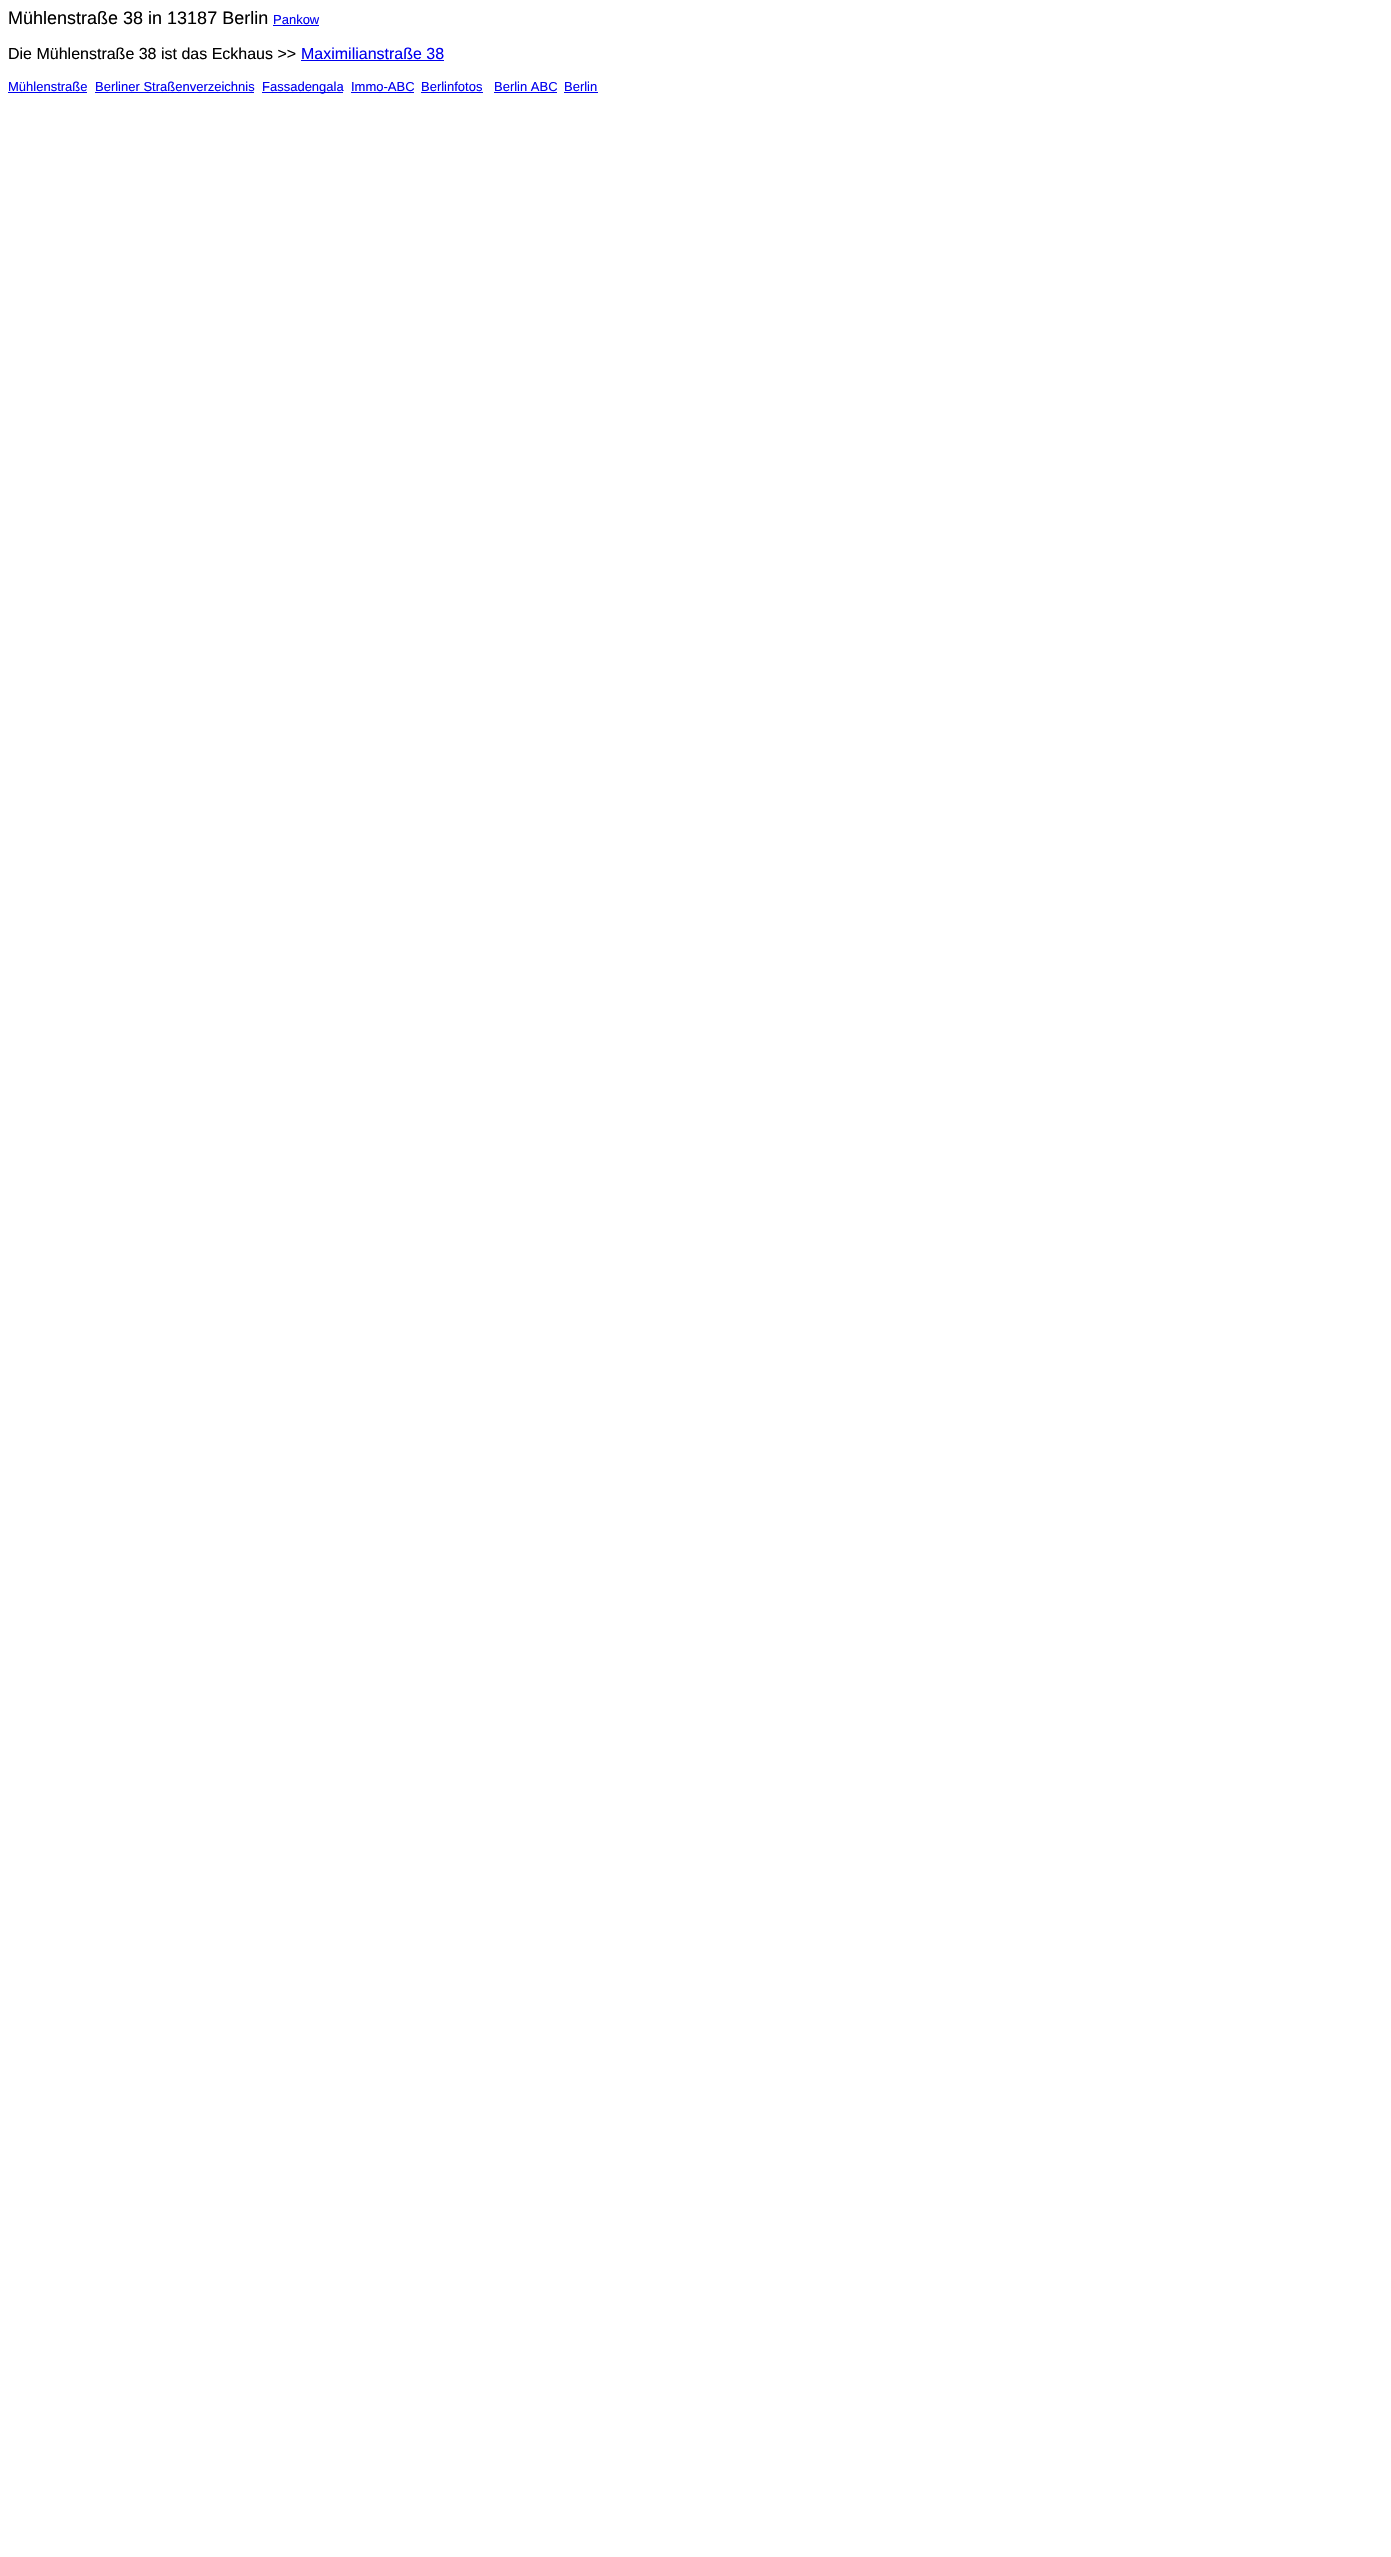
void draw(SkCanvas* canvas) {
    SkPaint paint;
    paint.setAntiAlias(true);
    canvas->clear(0xFFFFFFFF);
    SkFont font1(fontMgr->matchFamilyStyle("Liberation Sans", SkFontStyle::Normal()), 18);
    font1.setSubpixel(true);
    paint.setColor(0xFF000000);
    canvas->drawString("Mühlenstraße 38 in 13187 Berlin", 8, 24, font1, paint);
    SkFont font2(fontMgr->matchFamilyStyle("Liberation Sans", SkFontStyle::Normal()), 13);
    font2.setSubpixel(true);
    paint.setColor(0xFF0000EE);
    canvas->drawString("Pankow", 273, 24, font2, paint);
    canvas->drawRect(SkRect::MakeXYWH(273, 25, 46, 1), paint);
    SkFont font3(fontMgr->matchFamilyStyle("Liberation Sans", SkFontStyle::Normal()), 16);
    font3.setSubpixel(true);
    paint.setColor(0xFF000000);
    canvas->drawString("Die Mühlenstraße 38 ist das Eckhaus >>", 8, 59, font3, paint);
    paint.setColor(0xFF0000EE);
    canvas->drawString("Maximilianstraße 38", 301, 59, font3, paint);
    canvas->drawRect(SkRect::MakeXYWH(301, 60, 143, 1), paint);
    canvas->drawString("Mühlenstraße", 8, 91, font2, paint);
    canvas->drawRect(SkRect::MakeXYWH(8, 92, 79, 1), paint);
    canvas->drawString("Berliner Straßenverzeichnis", 95, 91, font2, paint);
    canvas->drawRect(SkRect::MakeXYWH(95, 92, 159, 1), paint);
    canvas->drawRect(SkRect::MakeXYWH(262, 92, 81, 1), paint);
    canvas->drawString("Fassadengala", 262, 91, font2, paint);
    canvas->drawString("Immo-ABC", 351, 91, font2, paint);
    canvas->drawRect(SkRect::MakeXYWH(351, 92, 63, 1), paint);
    canvas->drawString("Berlinfotos", 421, 91, font2, paint);
    canvas->drawRect(SkRect::MakeXYWH(421, 92, 62, 1), paint);
    canvas->drawString("Berlin ABC", 494, 91, font2, paint);
    canvas->drawRect(SkRect::MakeXYWH(494, 92, 63, 1), paint);
    canvas->drawString("Berlin", 564, 91, font2, paint);
    canvas->drawRect(SkRect::MakeXYWH(564, 92, 34, 1), paint);
}
